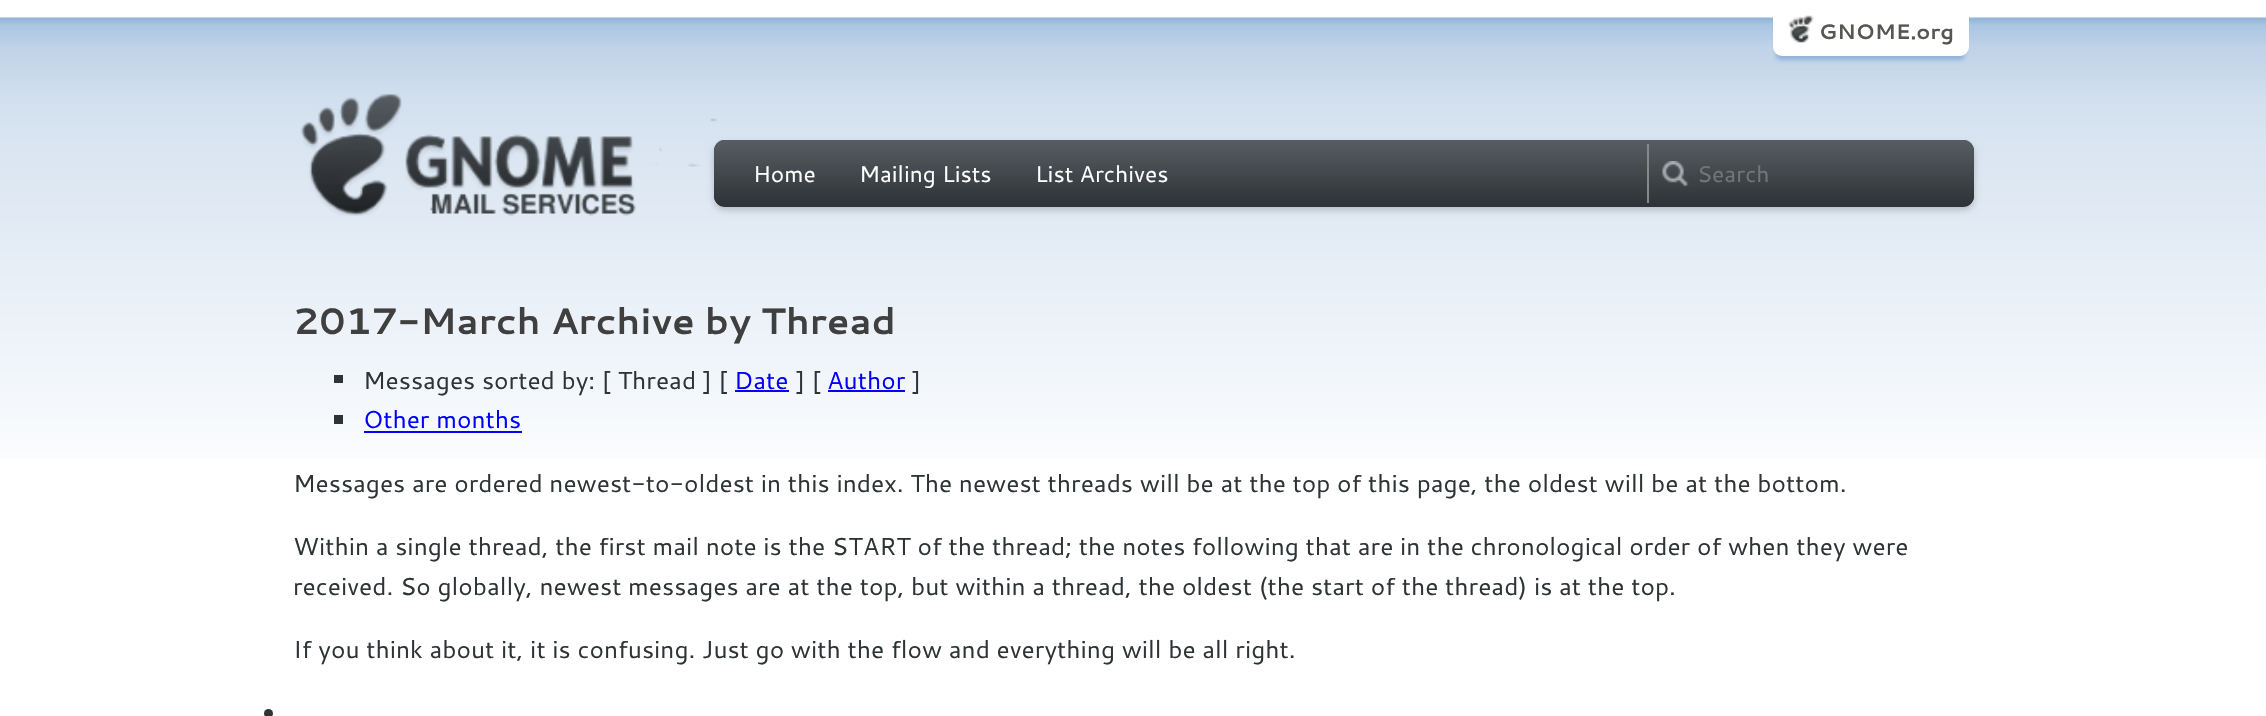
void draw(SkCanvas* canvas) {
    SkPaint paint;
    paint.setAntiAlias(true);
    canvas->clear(0xFFFFFFFF);
    canvas->drawImageRect(SkImages::DeferredFromEncodedData(SkData::MakeFromFileName("img1.png")), SkRect::MakeXYWH(0, 17, 2266, 442), SkSamplingOptions());
    paint.setColor(0xFF8FB3D9);
    paint.setMaskFilter(SkMaskFilter::MakeBlur(kNormal_SkBlurStyle, 2));
    canvas->drawRoundRect(SkRect::MakeXYWH(1776, 18, 189, 42), 5, 5, paint);
    paint.setMaskFilter(nullptr);
    paint.setColor(0xFFFFFFFF);
    canvas->drawRoundRect(SkRect::MakeXYWH(1773, 7, 196, 49), 9, 9, paint);
    canvas->drawImageRect(SkImages::DeferredFromEncodedData(SkData::MakeFromFileName("img2.png")), SkRect::MakeXYWH(1788, 15, 26, 28), SkSamplingOptions());
    SkFont font1(fontMgr->matchFamilyStyle("Cantarell", SkFontStyle::Bold()), 21);
    font1.setSubpixel(true);
    paint.setColor(0xFF555753);
    canvas->drawString("GNOME.org", 1819, 39, font1, paint);
    canvas->drawImageRect(SkImages::DeferredFromEncodedData(SkData::MakeFromFileName("img3.png")), SkRect::MakeXYWH(300, 94, 418, 122), SkSamplingOptions());
    paint.setColor(0x33000000);
    paint.setMaskFilter(SkMaskFilter::MakeBlur(kNormal_SkBlurStyle, 3.5f));
    canvas->drawRoundRect(SkRect::MakeXYWH(714, 144, 1260, 66), 11, 11, paint);
    paint.setMaskFilter(nullptr);
    paint.setColor(0xFF2E3436);
    canvas->drawRoundRect(SkRect::MakeXYWH(714, 140, 1260, 67), 11, 11, paint);
    canvas->drawImageRect(SkImages::DeferredFromEncodedData(SkData::MakeFromFileName("img4.png")), SkRect::MakeXYWH(714, 140, 1260, 67), SkSamplingOptions());
    SkFont font2(fontMgr->matchFamilyStyle("Cantarell", SkFontStyle::Normal()), 22.75f);
    font2.setSubpixel(true);
    paint.setColor(0xFFFFFFFF);
    canvas->drawString("Home", 753, 182, font2, paint);
    canvas->drawString("Mailing Lists", 859, 182, font2, paint);
    canvas->drawString("List Archives", 1035, 182, font2, paint);
    canvas->drawImageRect(SkImages::DeferredFromEncodedData(SkData::MakeFromFileName("img5.png")), SkRect::MakeXYWH(1662, 161, 27, 26), SkSamplingOptions());
    paint.setColor(0xFF888888);
    canvas->drawRect(SkRect::MakeXYWH(1647, 144, 2, 59), paint);
    paint.setColor(0xFF757575);
    canvas->drawString("Search", 1697, 182, font2, paint);
    SkFont font3(fontMgr->matchFamilyStyle("Cantarell", SkFontStyle::Bold()), 36.75f);
    font3.setSubpixel(true);
    paint.setColor(0xFF3F3F3F);
    canvas->drawString("2017-March Archive by Thread", 293, 334, font3, paint);
    paint.setColor(0xFF2E3436);
    canvas->drawRect(SkRect::MakeXYWH(334, 375, 9, 8), paint);
    SkFont font4(fontMgr->matchFamilyStyle("Cantarell", SkFontStyle::Normal()), 24.5f);
    font4.setSubpixel(true);
    canvas->drawString("Messages sorted by: [ Thread ] [", 363, 389, font4, paint);
    paint.setColor(0xFF0000FF);
    canvas->drawString("Date", 734, 389, font4, paint);
    canvas->drawRect(SkRect::MakeXYWH(735, 390, 54, 2), paint);
    paint.setColor(0xFF2E3436);
    canvas->drawString("] [", 796, 389, font4, paint);
    paint.setColor(0xFF0000FF);
    canvas->drawString("Author", 827, 389, font4, paint);
    canvas->drawRect(SkRect::MakeXYWH(828, 390, 77, 2), paint);
    paint.setColor(0xFF2E3436);
    canvas->drawString("]", 912, 389, font4, paint);
    canvas->drawRect(SkRect::MakeXYWH(334, 415, 9, 9), paint);
    paint.setColor(0xFF0000FF);
    canvas->drawString("Other months", 363, 428, font4, paint);
    canvas->drawRect(SkRect::MakeXYWH(364, 431, 158, 2), paint);
    paint.setColor(0xFF2E3436);
    canvas->drawString("Messages are ordered newest-to-oldest in this index. The newest threads will be at the top of this page, the oldest will be at the bottom.", 293, 492, font4, paint);
    canvas->drawString("Within a single thread, the first mail note is the START of the thread; the notes following that are in the chronological order of when they were", 293, 555, font4, paint);
    canvas->drawString("received. So globally, newest messages are at the top, but within a thread, the oldest (the start of the thread) is at the top.", 293, 595, font4, paint);
    canvas->drawString("If you think about it, it is confusing. Just go with the flow and everything will be all right.", 293, 658, font4, paint);
    canvas->drawCircle(268.5f, 713.5f, 4.5f, paint);
}
